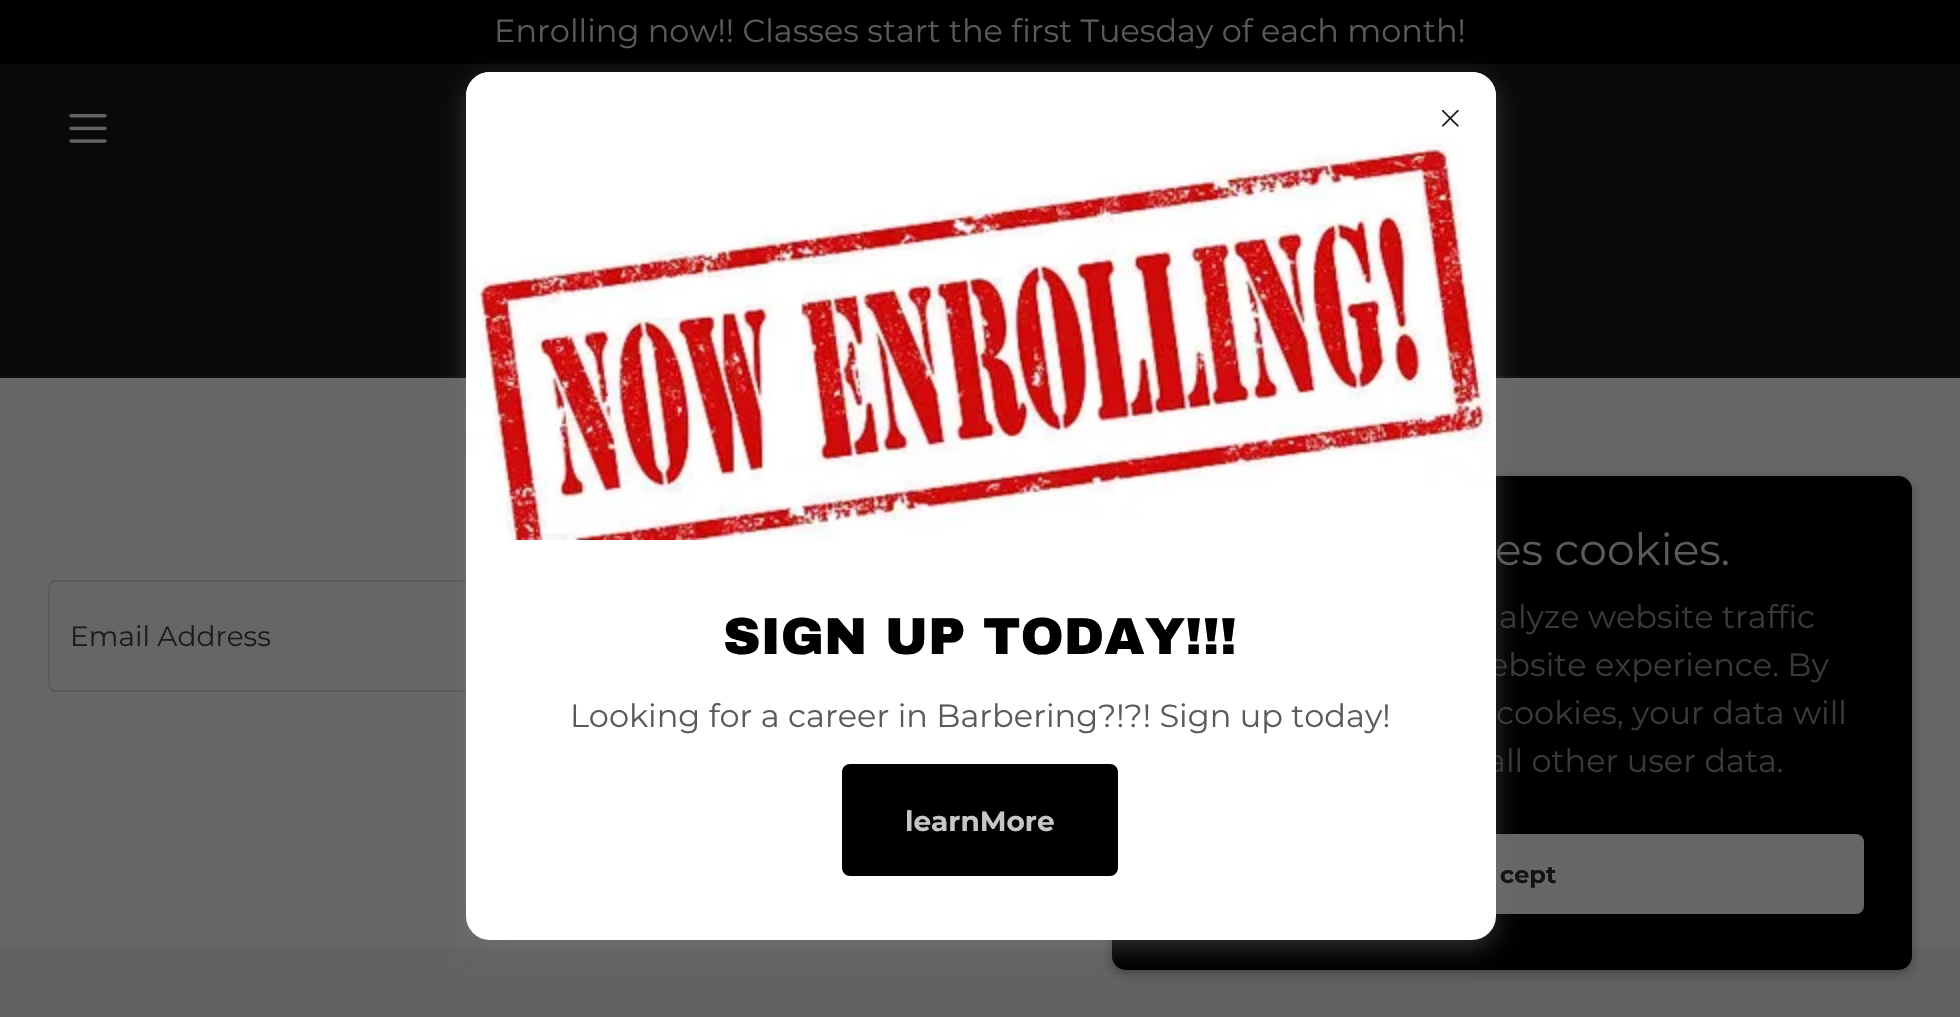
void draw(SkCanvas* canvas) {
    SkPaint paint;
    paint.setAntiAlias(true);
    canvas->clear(0xFF666666);
    paint.setColor(0xFF090909);
    canvas->drawRect(SkRect::MakeXYWH(0, 64, 1960, 312), paint);
    paint.setColor(0xFF000000);
    canvas->drawRect(SkRect::MakeXYWH(0, 0, 1960, 64), paint);
    SkFont font1(fontMgr->matchFamilyStyle("Montserrat", SkFontStyle::Normal()), 32);
    font1.setSubpixel(true);
    paint.setColor(0xFF5A5A5A);
    canvas->drawString("Enrolling now!! Classes start the first Tuesday of each month!", 494, 42, font1, paint);
    canvas->drawImageRect(SkImages::DeferredFromEncodedData(SkData::MakeFromFileName("img1.png")), SkRect::MakeXYWH(69, 114, 38, 29), SkSamplingOptions());
    paint.setColor(0xFF111111);
    canvas->drawRect(SkRect::MakeXYWH(0, 376, 1960, 2), paint);
    paint.setStyle(SkPaint::kStroke_Style);
    paint.setStrokeWidth(2);
    paint.setColor(0xFF5A5A5A);
    canvas->drawRoundRect(SkRect::MakeXYWH(49, 581, 1574, 110), 7, 7, paint);
    SkFont font2(fontMgr->matchFamilyStyle("Montserrat", SkFontStyle::Normal()), 28);
    font2.setSubpixel(true);
    paint.setStyle(SkPaint::kFill_Style);
    paint.setColor(0xFF1C1C1C);
    canvas->drawString("Email Address", 70, 646, font2, paint);
    paint.setColor(0xFF626262);
    canvas->drawRect(SkRect::MakeXYWH(0, 948, 1960, 69), paint);
    paint.setColor(0x4D000000);
    paint.setMaskFilter(SkMaskFilter::MakeBlur(kNormal_SkBlurStyle, 6));
    canvas->drawRoundRect(SkRect::MakeXYWH(1112, 480, 800, 494), 14, 14, paint);
    paint.setMaskFilter(nullptr);
    paint.setColor(0xFF000000);
    canvas->drawRoundRect(SkRect::MakeXYWH(1112, 476, 800, 494), 14, 14, paint);
    paint.setColor(0xFF666666);
    canvas->drawRoundRect(SkRect::MakeXYWH(1160, 834, 704, 80), 8, 8, paint);
    paint.setColor(0x66757575);
    paint.setMaskFilter(SkMaskFilter::MakeBlur(kNormal_SkBlurStyle, 12));
    canvas->drawRoundRect(SkRect::MakeXYWH(466, 80, 1030, 868), 24, 24, paint);
    paint.setMaskFilter(nullptr);
    paint.setColor(0xFF3A3A3A);
    canvas->drawString("ebsite experience. By", 1489, 676, font1, paint);
    canvas->drawString("all other user data.", 1487, 772, font1, paint);
    paint.setColor(0xFFFFFFFF);
    canvas->drawRoundRect(SkRect::MakeXYWH(466, 72, 1030, 868), 24, 24, paint);
    canvas->drawImageRect(SkImages::DeferredFromEncodedData(SkData::MakeFromFileName("img3.png")), SkRect::MakeXYWH(466, 72, 1030, 468), SkSamplingOptions());
    canvas->drawImageRect(SkImages::DeferredFromEncodedData(SkData::MakeFromFileName("img2.png")), SkRect::MakeXYWH(1441, 109, 18, 18), SkSamplingOptions());
    SkFont font3(fontMgr->matchFamilyStyle("Archivo Black", SkFontStyle(900, SkFontStyle::kNormal_Width, SkFontStyle::kUpright_Slant)), 52);
    font3.setSubpixel(true);
    paint.setColor(0xFF000000);
    canvas->drawString("SIGN UP TODAY!!!", 723, 654, font3, paint);
    paint.setColor(0xFF5A5A5A);
    canvas->drawString("Looking for a career in Barbering?!?! Sign up today!", 570, 727, font1, paint);
    paint.setColor(0xFF000000);
    canvas->drawRoundRect(SkRect::MakeXYWH(842, 764, 276, 112), 8, 8, paint);
    SkFont font4(fontMgr->matchFamilyStyle("Montserrat", SkFontStyle::Bold()), 28);
    font4.setSubpixel(true);
    paint.setColor(0xFFC6C6C6);
    canvas->drawString("learnMore", 905, 831, font4, paint);
    SkFont font5(fontMgr->matchFamilyStyle("Montserrat", SkFontStyle::Normal()), 44);
    font5.setSubpixel(true);
    paint.setColor(0xFF5A5A5A);
    canvas->drawString("es cookies.", 1495, 565, font5, paint);
    paint.setColor(0xFF3A3A3A);
    canvas->drawString("alyze website traffic", 1499, 628, font1, paint);
    canvas->drawString("cookies, your data will", 1496, 724, font1, paint);
    SkFont font6(fontMgr->matchFamilyStyle("Montserrat", SkFontStyle::Bold()), 24);
    font6.setSubpixel(true);
    paint.setColor(0xFF131313);
    canvas->drawString("cept", 1500, 883, font6, paint);
}
